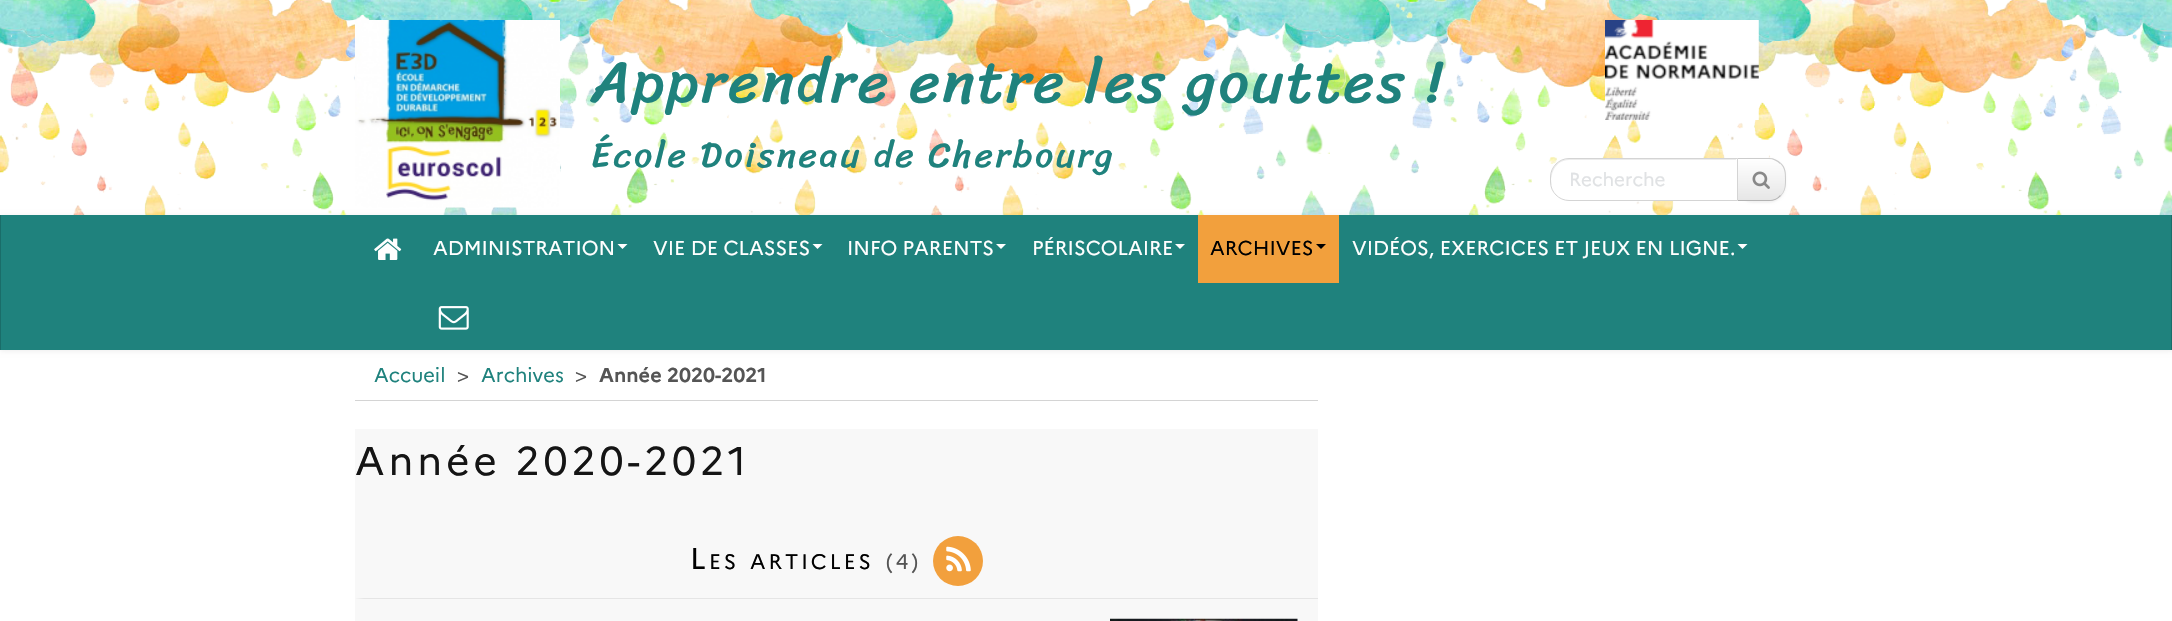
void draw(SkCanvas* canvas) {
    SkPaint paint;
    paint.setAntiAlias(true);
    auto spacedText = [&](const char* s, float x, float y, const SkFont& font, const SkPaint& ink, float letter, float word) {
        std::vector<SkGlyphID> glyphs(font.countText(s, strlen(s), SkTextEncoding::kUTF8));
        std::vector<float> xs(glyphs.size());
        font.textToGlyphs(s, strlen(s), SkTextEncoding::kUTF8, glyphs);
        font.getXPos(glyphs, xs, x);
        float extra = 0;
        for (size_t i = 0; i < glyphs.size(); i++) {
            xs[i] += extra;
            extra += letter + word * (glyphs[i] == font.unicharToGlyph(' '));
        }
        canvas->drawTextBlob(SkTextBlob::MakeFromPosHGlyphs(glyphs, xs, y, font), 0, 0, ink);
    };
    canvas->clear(0xFFFFFFFF);
    paint.setColor(0x12000000);
    paint.setMaskFilter(SkMaskFilter::MakeBlur(kNormal_SkBlurStyle, 2.5f));
    canvas->drawRect(SkRect::MakeXYWH(0, 216, 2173, 135), paint);
    paint.setMaskFilter(nullptr);
    canvas->drawImageRect(SkImages::DeferredFromEncodedData(SkData::MakeFromFileName("img1.png")), SkRect::MakeXYWH(0, 0, 2172, 215), SkSamplingOptions());
    canvas->drawImageRect(SkImages::DeferredFromEncodedData(SkData::MakeFromFileName("img2.png")), SkRect::MakeXYWH(355, 20, 205, 188), SkSamplingOptions());
    SkFont font1(fontMgr->matchFamilyStyle("Sriracha", SkFontStyle::Normal()), 60);
    font1.setSubpixel(true);
    paint.setColor(0xFF1F827D);
    spacedText("Apprendre entre les gouttes !", 591, 102, font1, paint, 2.5f, 0);
    SkFont font2(fontMgr->matchFamilyStyle("Sriracha", SkFontStyle::Normal()), 36);
    font2.setSubpixel(true);
    spacedText("École Doisneau de Cherbourg", 591, 167, font2, paint, 2.5f, 0);
    canvas->drawImageRect(SkImages::DeferredFromEncodedData(SkData::MakeFromFileName("img3.png")), SkRect::MakeXYWH(1605, 20, 154, 100), SkSamplingOptions());
    paint.setColor(0x0D000000);
    paint.setMaskFilter(SkMaskFilter::MakeBlur(kNormal_SkBlurStyle, 1));
    canvas->drawRoundRect(SkRect::MakeXYWH(1736, 159, 50, 44), 18, 18, paint);
    paint.setMaskFilter(nullptr);
    canvas->save();
    canvas->clipPath(SkPathBuilder().moveTo(1736, 158).lineTo(1768, 158).cubicTo(1778, 158, 1786, 166, 1786, 176).lineTo(1786, 183).cubicTo(1786, 193, 1778, 201, 1768, 201).lineTo(1736, 201).close().detach(), true);
    {
        const SkColor colors[] = {0xFFFFFFFF, 0xFFE6E6E6};
        const float stops[] = {0, 1};
        const SkPoint ends[] = {{1761, 159}, {1761, 200}};
        paint.setShader(SkGradientShader::MakeLinear(ends, colors, stops, 2, SkTileMode::kClamp));
        paint.setAlpha(255);
    }
    canvas->drawRect(SkRect::MakeXYWH(1738, 159, 48, 41), paint);
    canvas->restore();
    paint.setShader(nullptr);
    paint.setColor(0xFFCCCCCC);
    canvas->drawPath(SkPathBuilder().moveTo(1738, 159).lineTo(1769, 159).cubicTo(1773, 159, 1777, 161, 1780, 164).lineTo(1781, 163).cubicTo(1778, 160, 1774, 158, 1769, 158).lineTo(1737, 158).close().detach(), paint);
    canvas->drawPath(SkPathBuilder().moveTo(1781, 163).cubicTo(1786, 167.5f, 1786, 173, 1786, 179.5f).cubicTo(1786, 186, 1785.5f, 191, 1781, 196).lineTo(1780.5f, 195.5f).cubicTo(1785, 191, 1785, 185.5f, 1785, 179.5f).cubicTo(1785, 173.5f, 1785, 168, 1780, 163.5f).close().detach(), paint);
    paint.setColor(0xFFB3B3B3);
    canvas->drawPath(SkPathBuilder().moveTo(1781, 196).cubicTo(1778, 199, 1774, 201, 1769, 201).lineTo(1736, 201).lineTo(1738, 200).lineTo(1769, 200).cubicTo(1774, 200, 1778, 198, 1780, 195).close().detach(), paint);
    paint.setColor(0xFFFFFFFF);
    canvas->drawPath(SkPathBuilder().moveTo(1569, 158).lineTo(1738, 158).lineTo(1738, 201).lineTo(1569, 201).cubicTo(1558.5f, 201, 1550, 192.5f, 1550, 182).lineTo(1550, 177).cubicTo(1550, 166.5f, 1558.5f, 158, 1569, 158).close().detach(), paint);
    paint.setColor(0xFFECECEC);
    canvas->drawPath(SkPathBuilder().moveTo(1569, 160).lineTo(1736, 160).lineTo(1736, 159).lineTo(1569, 159).cubicTo(1559, 159, 1551, 167, 1551, 177).lineTo(1552, 187).cubicTo(1549, 175, 1555, 160, 1569, 160).close().detach(), paint);
    paint.setStyle(SkPaint::kStroke_Style);
    paint.setStrokeWidth(1);
    paint.setColor(0xFFD4D4D4);
    canvas->drawPath(SkPathBuilder().moveTo(1569, 158.5f).lineTo(1737.5f, 158.5f).lineTo(1737.5f, 200.5f).lineTo(1569, 200.5f).cubicTo(1559, 200.5f, 1550.5f, 192, 1550.5f, 182).lineTo(1550.5f, 177).cubicTo(1550.5f, 167, 1559, 158.5f, 1569, 158.5f).close().detach(), paint);
    SkFont font3(fontMgr->matchFamilyStyle("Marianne", SkFontStyle::Normal()), 18.75f);
    font3.setSubpixel(true);
    paint.setStyle(SkPaint::kFill_Style);
    paint.setColor(0xFFE0E2E4);
    canvas->drawString("Recherche", 1569, 186, font3, paint);
    canvas->drawImageRect(SkImages::DeferredFromEncodedData(SkData::MakeFromFileName("img4.png")), SkRect::MakeXYWH(1752, 171, 18, 18), SkSamplingOptions());
    paint.setColor(0xFF1F827D);
    canvas->drawRect(SkRect::MakeXYWH(1, 215, 2170, 135), paint);
    paint.setColor(0xFF1A6D69);
    canvas->drawRect(SkRect::MakeXYWH(2171, 215, 1, 135), paint);
    canvas->drawRect(SkRect::MakeXYWH(0, 215, 1, 135), paint);
    canvas->drawImageRect(SkImages::DeferredFromEncodedData(SkData::MakeFromFileName("img5.png")), SkRect::MakeXYWH(374, 238, 28, 22), SkSamplingOptions());
    SkFont font4(fontMgr->matchFamilyStyle("Marianne", SkFontStyle::Normal()), 20);
    font4.setSubpixel(true);
    paint.setColor(0xFFFFFFFF);
    canvas->drawString("ADMINISTRATION", 433, 255, font4, paint);
    canvas->drawPath(SkPathBuilder().moveTo(617.5f, 244).lineTo(627.5f, 244).lineTo(622.5f, 249).close().detach(), paint);
    canvas->drawString("VIE DE CLASSES", 653, 255, font4, paint);
    canvas->drawPath(SkPathBuilder().moveTo(812.5f, 244).lineTo(822.5f, 244).lineTo(817.5f, 249).close().detach(), paint);
    canvas->drawString("INFO PARENTS", 847, 255, font4, paint);
    canvas->drawPath(SkPathBuilder().moveTo(996, 244).lineTo(1006, 244).lineTo(1001, 249).close().detach(), paint);
    canvas->drawString("PÉRISCOLAIRE", 1032, 255, font4, paint);
    canvas->drawPath(SkPathBuilder().moveTo(1175, 244).lineTo(1185, 244).lineTo(1180, 249).close().detach(), paint);
    paint.setColor(0xFFF2A03D);
    canvas->drawRect(SkRect::MakeXYWH(1198, 215, 141, 68), paint);
    paint.setColor(0xFF000000);
    canvas->drawString("ARCHIVES", 1210, 255, font4, paint);
    canvas->drawPath(SkPathBuilder().moveTo(1316, 244).lineTo(1326, 244).lineTo(1321, 249).close().detach(), paint);
    paint.setColor(0xFFFFFFFF);
    canvas->drawString("VIDÉOS, EXERCICES ET JEUX EN LIGNE.", 1352, 255, font4, paint);
    canvas->drawPath(SkPathBuilder().moveTo(1737.5f, 244).lineTo(1747.5f, 244).lineTo(1742.5f, 249).close().detach(), paint);
    canvas->drawImageRect(SkImages::DeferredFromEncodedData(SkData::MakeFromFileName("img6.png")), SkRect::MakeXYWH(438, 306, 31, 24), SkSamplingOptions());
    paint.setColor(0xFFD4D4D4);
    canvas->drawRect(SkRect::MakeXYWH(355, 400, 963, 1), paint);
    paint.setColor(0xFF1F827D);
    canvas->drawString("Accueil", 374, 382, font4, paint);
    paint.setColor(0xFF555555);
    canvas->drawString(">", 457, 382, font4, paint);
    paint.setColor(0xFF1F827D);
    canvas->drawString("Archives", 481, 382, font4, paint);
    paint.setColor(0xFF555555);
    canvas->drawString(">", 575, 382, font4, paint);
    SkFont font5(fontMgr->matchFamilyStyle("Marianne", SkFontStyle::Bold()), 20);
    font5.setSubpixel(true);
    canvas->drawString("Année 2020-2021", 599, 382, font5, paint);
    paint.setColor(0xFFF8F8F8);
    canvas->drawRect(SkRect::MakeXYWH(355, 429, 963, 192), paint);
    SkFont font6(fontMgr->matchFamilyStyle("Marianne", SkFontStyle::Normal()), 40);
    font6.setSubpixel(true);
    paint.setColor(0xFF151515);
    spacedText("Année 2020-2021", 355, 475, font6, paint, 4, 0);
    SkFont font7(fontMgr->matchFamilyStyle("Marianne", SkFontStyle::Normal()), 30);
    font7.setSubpixel(true);
    paint.setColor(0xFF000000);
    spacedText("L", 690, 569, font7, paint, 3, 0);
    SkFont font8(fontMgr->matchFamilyStyle("Marianne", SkFontStyle::Normal()), 21);
    font8.setSubpixel(true);
    spacedText("ES", 709, 569, font8, paint, 3, 0);
    spacedText("ARTICLES", 750, 569, font8, paint, 3, 0);
    paint.setColor(0xFF555555);
    spacedText("(4)", 886, 569, font8, paint, 3, 0);
    paint.setColor(0xFFF2A03D);
    canvas->drawCircle(958, 561, 25, paint);
    canvas->drawImageRect(SkImages::DeferredFromEncodedData(SkData::MakeFromFileName("img7.png")), SkRect::MakeXYWH(946, 546, 25, 26), SkSamplingOptions());
    paint.setColor(0xFFE5E5E5);
    canvas->drawPath(SkPathBuilder().moveTo(355, 598).lineTo(1318, 598).lineTo(1318, 599).lineTo(364, 599).close().detach(), paint);
    canvas->drawImageRect(SkImages::DeferredFromEncodedData(SkData::MakeFromFileName("img8.png")), SkRect::MakeXYWH(1110, 618, 188, 3), SkSamplingOptions());
}
